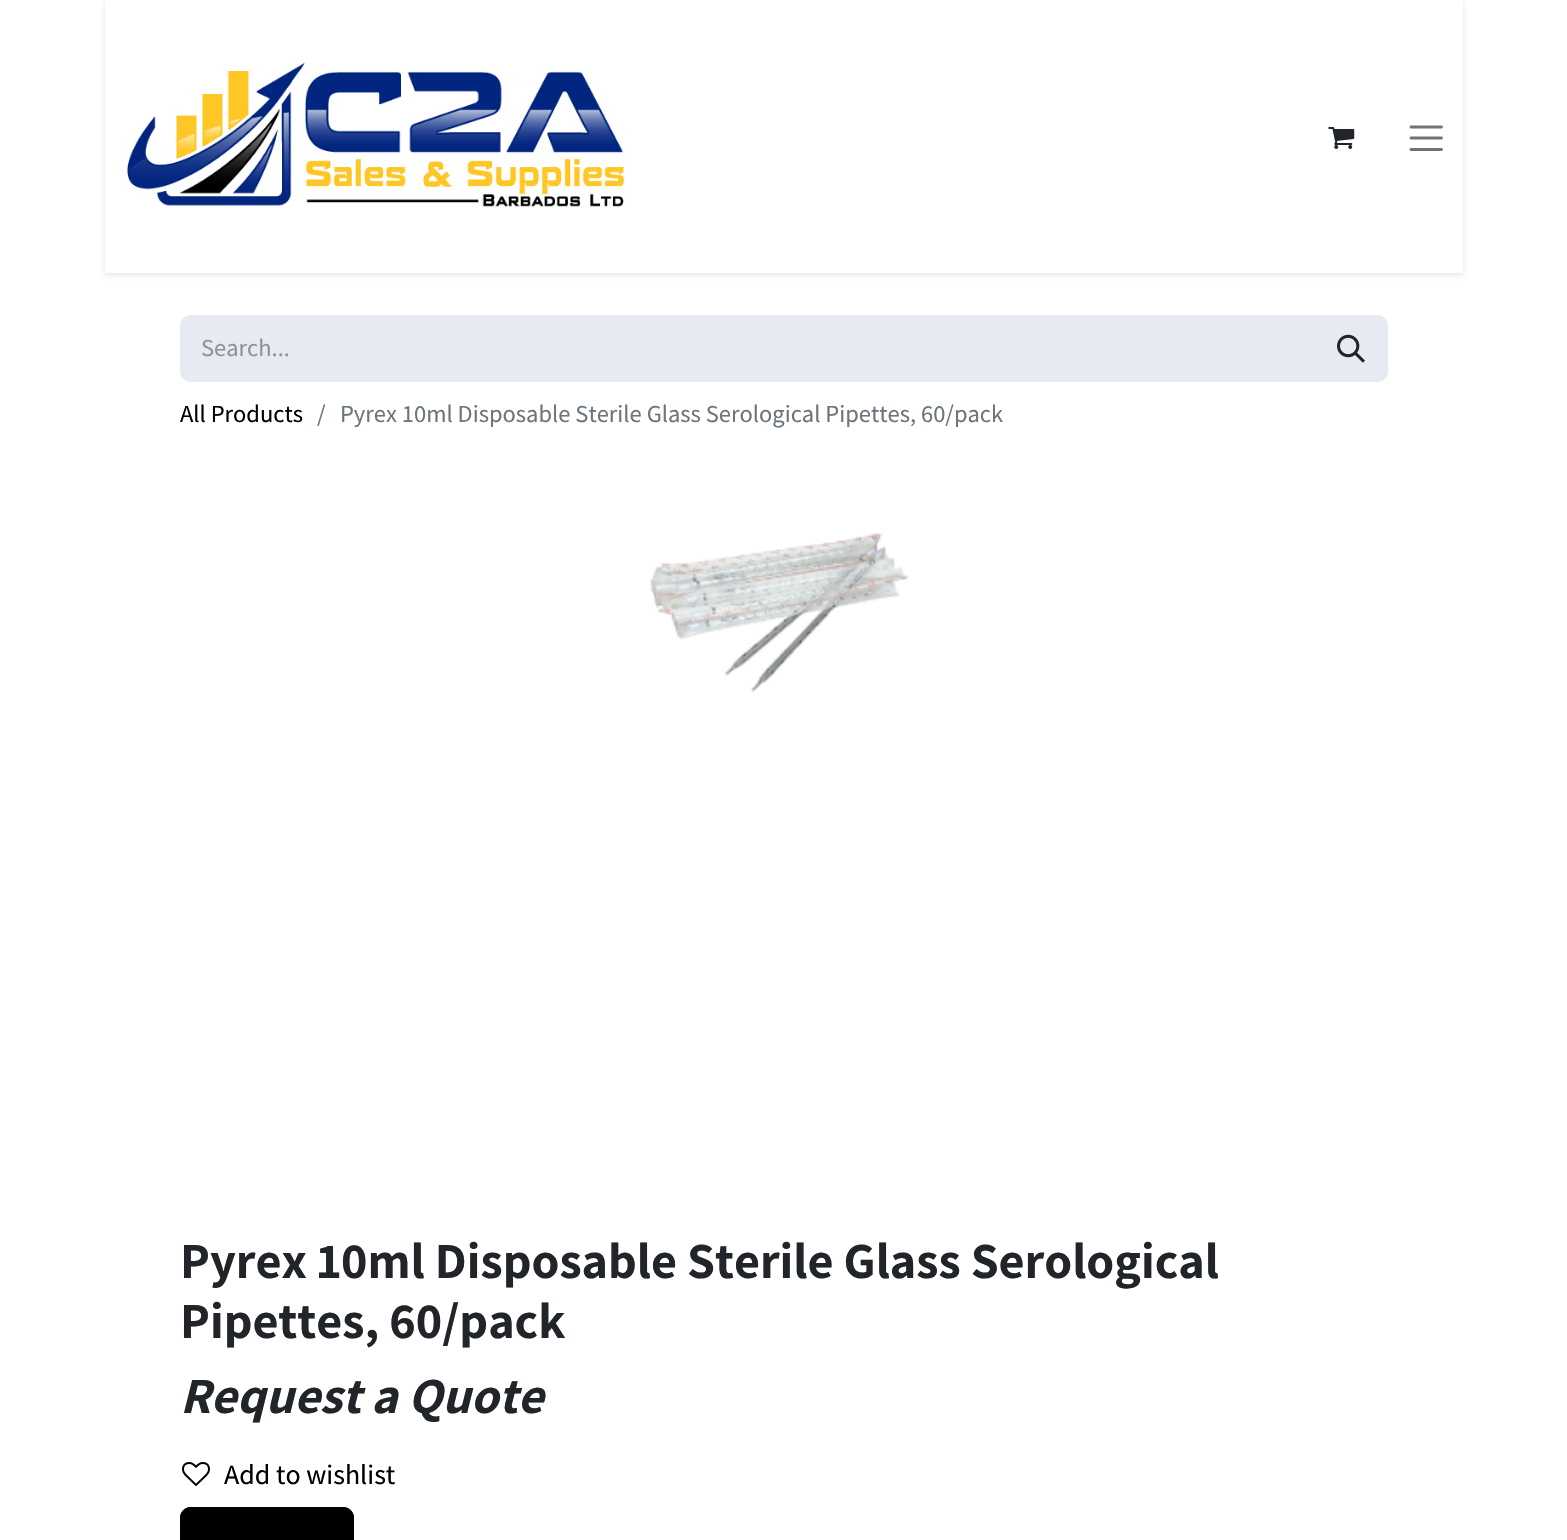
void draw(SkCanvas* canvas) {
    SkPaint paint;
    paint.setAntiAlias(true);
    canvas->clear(0xFFFFFFFF);
    canvas->save();
    canvas->clipPath(SkPathBuilder(SkPathFillType::kEvenOdd).moveTo(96, 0).lineTo(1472, 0).lineTo(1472, 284).lineTo(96, 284).close().moveTo(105, 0).lineTo(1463, 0).lineTo(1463, 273).lineTo(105, 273).close().detach(), true);
    paint.setColor(0x1A000000);
    paint.setMaskFilter(SkMaskFilter::MakeBlur(kNormal_SkBlurStyle, 2.5f));
    canvas->drawRect(SkRect::MakeXYWH(105, 2, 1358, 273), paint);
    paint.setMaskFilter(nullptr);
    canvas->restore();
    canvas->drawImageRect(SkImages::DeferredFromEncodedData(SkData::MakeFromFileName("img1.png")), SkRect::MakeXYWH(127, 62, 498, 145), SkSamplingOptions());
    canvas->drawImageRect(SkImages::DeferredFromEncodedData(SkData::MakeFromFileName("img2.png")), SkRect::MakeXYWH(1328, 127, 27, 22), SkSamplingOptions());
    paint.setStyle(SkPaint::kStroke_Style);
    paint.setStrokeWidth(2.8f);
    paint.setStrokeCap(SkPaint::kRound_Cap);
    paint.setColor(0xFF737373);
    canvas->drawPath(SkPathBuilder().moveTo(1411, 127).lineTo(1441.5f, 127).moveTo(1411, 138).lineTo(1441.5f, 138).moveTo(1411, 149.5f).lineTo(1441.5f, 149.5f).detach(), paint);
    paint.setStyle(SkPaint::kFill_Style);
    paint.setColor(0xFFE7EAF3);
    canvas->drawPath(SkPathBuilder().moveTo(191, 315).lineTo(1316, 315).lineTo(1316, 382).lineTo(191, 382).cubicTo(185, 382, 180, 377, 180, 371).lineTo(180, 326).cubicTo(180, 320, 185, 315, 191, 315).close().detach(), paint);
    SkFont font1(fontMgr->matchFamilyStyle("Source Sans Pro", SkFontStyle::Normal()), 24.5f);
    font1.setSubpixel(true);
    paint.setColor(0xFF909294);
    canvas->drawString("Search...", 201, 356, font1, paint);
    paint.setColor(0xFFE7EAF3);
    canvas->drawPath(SkPathBuilder().moveTo(1315, 316).lineTo(1377, 316).cubicTo(1382.5f, 316, 1387, 320.5f, 1387, 326).lineTo(1387, 371).cubicTo(1387, 376.5f, 1382.5f, 381, 1377, 381).lineTo(1315, 381).close().detach(), paint);
    paint.setStyle(SkPaint::kStroke_Style);
    paint.setStrokeWidth(2);
    paint.setStrokeCap(SkPaint::kButt_Cap);
    canvas->drawPath(SkPathBuilder().moveTo(1315, 316).lineTo(1377, 316).cubicTo(1382.5f, 316, 1387, 320.5f, 1387, 326).lineTo(1387, 371).cubicTo(1387, 376.5f, 1382.5f, 381, 1377, 381).lineTo(1315, 381).close().detach(), paint);
    canvas->drawImageRect(SkImages::DeferredFromEncodedData(SkData::MakeFromFileName("img3.png")), SkRect::MakeXYWH(1337, 334, 28, 29), SkSamplingOptions());
    paint.setStyle(SkPaint::kFill_Style);
    paint.setColor(0xFF000000);
    canvas->drawString("All Products", 180, 422, font1, paint);
    paint.setColor(0xFF6C757D);
    canvas->drawString("/", 317, 422, font1, paint);
    canvas->drawString("Pyrex 10ml Disposable Sterile Glass Serological Pipettes, 60/pack", 340, 422, font1, paint);
    canvas->drawImageRect(SkImages::DeferredFromEncodedData(SkData::MakeFromFileName("img4.png")), SkRect::MakeXYWH(650, 533, 259, 159), SkSamplingOptions());
    SkFont font2(fontMgr->matchFamilyStyle("Assistant", SkFontStyle::Bold()), 50.5f);
    font2.setSubpixel(true);
    paint.setColor(0xFF212529);
    canvas->drawString("Pyrex 10ml Disposable Sterile Glass Serological", 180, 1278, font2, paint);
    canvas->drawString("Pipettes, 60/pack", 180, 1338, font2, paint);
    SkFont font3(fontMgr->matchFamilyStyle("Assistant", SkFontStyle::BoldItalic()), 50.5f);
    font3.setSubpixel(true);
    canvas->drawString("Request a Quote", 180, 1413, font3, paint);
    canvas->drawImageRect(SkImages::DeferredFromEncodedData(SkData::MakeFromFileName("img5.png")), SkRect::MakeXYWH(182, 1462, 28, 24), SkSamplingOptions());
    SkFont font4(fontMgr->matchFamilyStyle("Source Sans Pro", SkFontStyle::Normal()), 28);
    font4.setSubpixel(true);
    paint.setColor(0xFF000000);
    canvas->drawString("Add to wishlist", 224, 1484, font4, paint);
    canvas->drawPath(SkPathBuilder().moveTo(191, 1507).lineTo(343, 1507).cubicTo(349, 1507, 354, 1512, 354, 1518).lineTo(354, 1540).lineTo(180, 1540).lineTo(180, 1518).cubicTo(180, 1512, 185, 1507, 191, 1507).close().detach(), paint);
    paint.setStyle(SkPaint::kStroke_Style);
    canvas->drawRoundRect(SkRect::MakeXYWH(181, 1508, 172, 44), 10, 10, paint);
}
